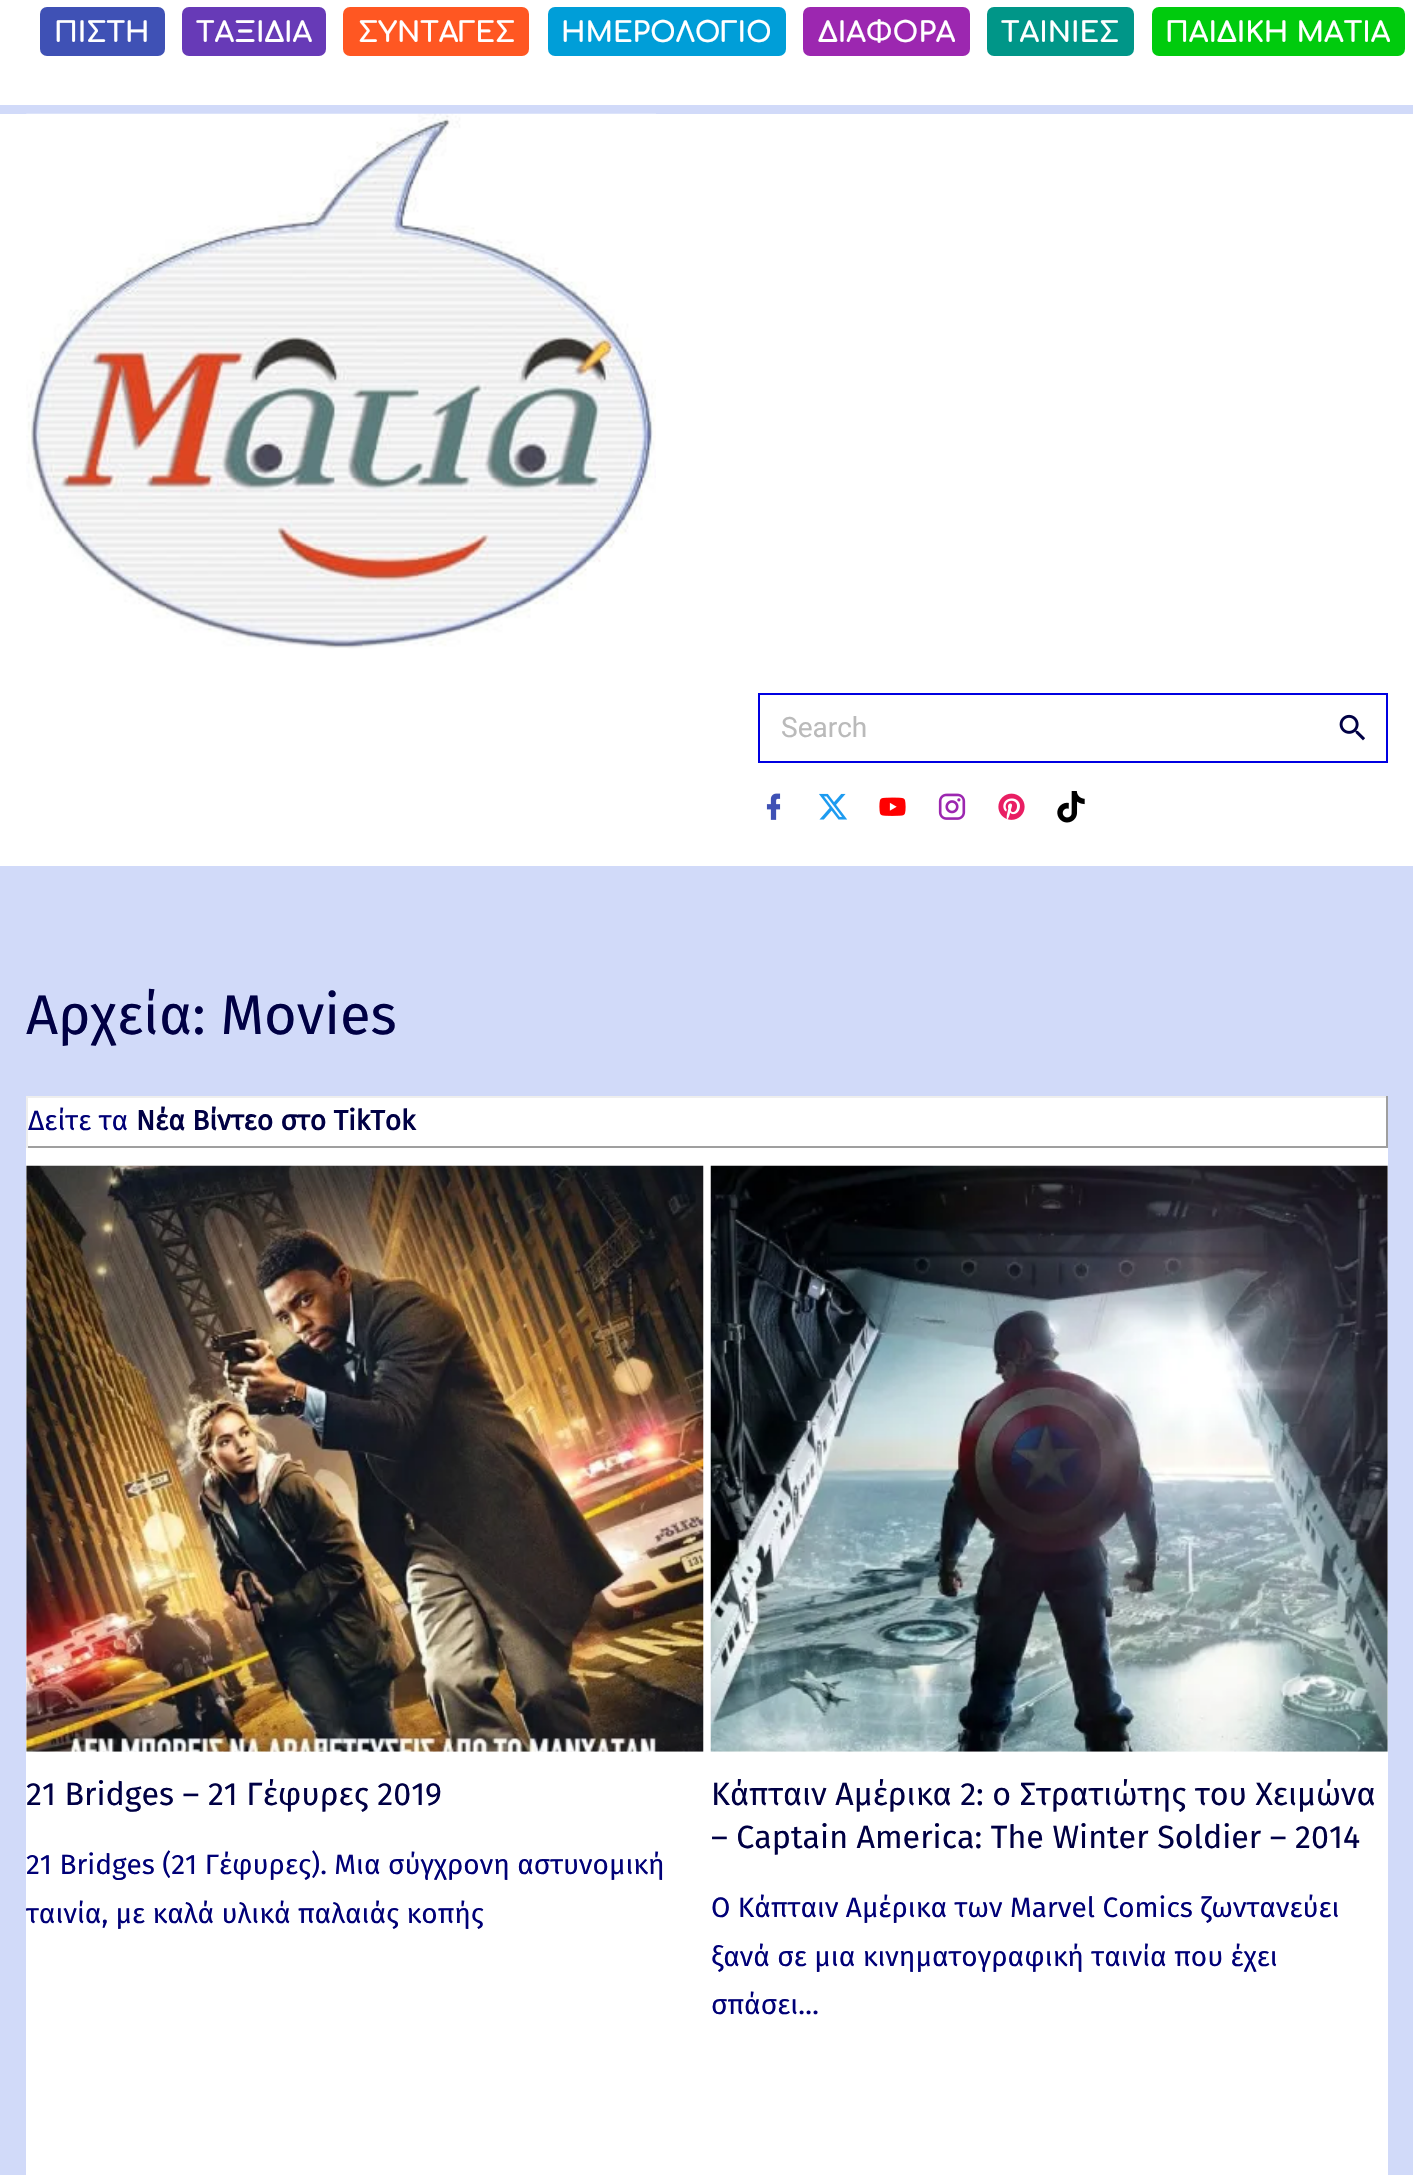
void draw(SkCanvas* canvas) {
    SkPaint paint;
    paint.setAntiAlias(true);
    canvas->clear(0xFFD1DAF9);
    paint.setColor(0xFFFFFFFF);
    canvas->drawRect(SkRect::MakeXYWH(0, 0, 1413, 105), paint);
    paint.setColor(0xFF3F51B5);
    canvas->drawRoundRect(SkRect::MakeXYWH(40, 7, 125, 49), 7, 7, paint);
    SkFont font1(fontMgr->matchFamilyStyle("Comfortaa", SkFontStyle::Bold()), 28);
    font1.setSubpixel(true);
    paint.setColor(0xFFFFFFFF);
    canvas->drawString("ΠΙΣΤΗ", 54, 42, font1, paint);
    paint.setColor(0xFF673AB7);
    canvas->drawRoundRect(SkRect::MakeXYWH(182, 7, 144, 49), 7, 7, paint);
    paint.setColor(0xFFFFFFFF);
    canvas->drawString("ΤΑΞΙΔΙΑ", 196, 42, font1, paint);
    paint.setColor(0xFFFF5722);
    canvas->drawRoundRect(SkRect::MakeXYWH(343, 7, 186, 49), 7, 7, paint);
    paint.setColor(0xFFFFFFFF);
    canvas->drawString("ΣΥΝΤΑΓΕΣ", 358, 42, font1, paint);
    paint.setColor(0xFF009ED8);
    canvas->drawRoundRect(SkRect::MakeXYWH(548, 7, 238, 49), 7, 7, paint);
    paint.setColor(0xFFFFFFFF);
    canvas->drawString("ΗΜΕΡΟΛΟΓΙΟ", 561, 42, font1, paint);
    paint.setColor(0xFF9C27B0);
    canvas->drawRoundRect(SkRect::MakeXYWH(803, 7, 167, 49), 7, 7, paint);
    paint.setColor(0xFFFFFFFF);
    canvas->drawString("ΔΙΑΦΟΡΑ", 818, 42, font1, paint);
    paint.setColor(0xFF009688);
    canvas->drawRoundRect(SkRect::MakeXYWH(987, 7, 147, 49), 7, 7, paint);
    paint.setColor(0xFFFFFFFF);
    canvas->drawString("ΤΑΙΝΙΕΣ", 1001, 42, font1, paint);
    paint.setColor(0xFF00CB0D);
    canvas->drawRoundRect(SkRect::MakeXYWH(1152, 7, 253, 49), 7, 7, paint);
    paint.setColor(0xFFFFFFFF);
    canvas->drawString("ΠΑΙΔΙΚΗ ΜΑΤΙΑ", 1165, 42, font1, paint);
    canvas->drawRect(SkRect::MakeXYWH(0, 114, 1413, 752), paint);
    canvas->drawImageRect(SkImages::DeferredFromEncodedData(SkData::MakeFromFileName("img1.png")), SkRect::MakeXYWH(26, 113, 630, 536), SkSamplingOptions());
    paint.setStyle(SkPaint::kStroke_Style);
    paint.setStrokeWidth(2);
    paint.setColor(0xFF0000E1);
    canvas->drawRect(SkRect::MakeXYWH(759, 694, 628, 68), paint);
    SkFont font2(fontMgr->matchFamilyStyle("Roboto", SkFontStyle::Normal()), 28);
    font2.setSubpixel(true);
    paint.setStyle(SkPaint::kFill_Style);
    paint.setColor(0xFFBABABA);
    canvas->drawString("Search", 781, 737, font2, paint);
    canvas->drawImageRect(SkImages::DeferredFromEncodedData(SkData::MakeFromFileName("img2.png")), SkRect::MakeXYWH(1339, 714, 26, 27), SkSamplingOptions());
    canvas->drawImageRect(SkImages::DeferredFromEncodedData(SkData::MakeFromFileName("img3.png")), SkRect::MakeXYWH(766, 793, 15, 27), SkSamplingOptions());
    canvas->drawImageRect(SkImages::DeferredFromEncodedData(SkData::MakeFromFileName("img4.png")), SkRect::MakeXYWH(819, 793, 29, 27), SkSamplingOptions());
    canvas->drawImageRect(SkImages::DeferredFromEncodedData(SkData::MakeFromFileName("img5.png")), SkRect::MakeXYWH(879, 797, 27, 19), SkSamplingOptions());
    canvas->drawImageRect(SkImages::DeferredFromEncodedData(SkData::MakeFromFileName("img6.png")), SkRect::MakeXYWH(938, 793, 28, 27), SkSamplingOptions());
    canvas->drawImageRect(SkImages::DeferredFromEncodedData(SkData::MakeFromFileName("img7.png")), SkRect::MakeXYWH(998, 793, 27, 27), SkSamplingOptions());
    canvas->drawImageRect(SkImages::DeferredFromEncodedData(SkData::MakeFromFileName("img8.png")), SkRect::MakeXYWH(1057, 791, 28, 32), SkSamplingOptions());
    SkFont font3(fontMgr->matchFamilyStyle("Fira Sans", SkFontStyle::Normal()), 56);
    font3.setSubpixel(true);
    paint.setColor(0xFF000044);
    canvas->drawString("Αρχεία: Movies", 26, 1034, font3, paint);
    paint.setColor(0xFFFFFFFF);
    canvas->drawRect(SkRect::MakeXYWH(26, 1098, 1362, 1077), paint);
    paint.setColor(0xFFEEEEEE);
    canvas->drawRect(SkRect::MakeXYWH(26, 1096, 1362, 2), paint);
    paint.setColor(0xFF9F9F9F);
    canvas->drawRect(SkRect::MakeXYWH(1386, 1096, 2, 52), paint);
    canvas->drawRect(SkRect::MakeXYWH(26, 1146, 1362, 2), paint);
    paint.setColor(0xFFEEEEEE);
    canvas->drawRect(SkRect::MakeXYWH(26, 1096, 2, 52), paint);
    SkFont font4(fontMgr->matchFamilyStyle("Fira Sans", SkFontStyle::Normal()), 28);
    font4.setSubpixel(true);
    paint.setColor(0xFF000077);
    canvas->drawString("Δείτε τα", 28, 1130, font4, paint);
    SkFont font5(fontMgr->matchFamilyStyle("Fira Sans", SkFontStyle::Bold()), 28);
    font5.setSubpixel(true);
    paint.setColor(0xFF000044);
    canvas->drawString("Νέα Βίντεο στο TikTok", 136, 1130, font5, paint);
    canvas->drawImageRect(SkImages::DeferredFromEncodedData(SkData::MakeFromFileName("img9.png")), SkRect::MakeXYWH(26, 1165, 678, 587), SkSamplingOptions());
    SkFont font6(fontMgr->matchFamilyStyle("Fira Sans", SkFontStyle::Normal()), 32.2f);
    font6.setSubpixel(true);
    canvas->drawString("21 Bridges – 21 Γέφυρες 2019", 26, 1805, font6, paint);
    paint.setColor(0xFF000077);
    canvas->drawString("21 Bridges (21 Γέφυρες). Μια σύγχρονη αστυνομική", 26, 1874, font4, paint);
    canvas->drawString("ταινία, με καλά υλικά παλαιάς κοπής", 26, 1923, font4, paint);
    canvas->drawImageRect(SkImages::DeferredFromEncodedData(SkData::MakeFromFileName("img10.png")), SkRect::MakeXYWH(710, 1165, 678, 587), SkSamplingOptions());
    paint.setColor(0xFF000044);
    canvas->drawString("Κάπταιν Αμέρικα 2: ο Στρατιώτης του Χειμώνα", 711, 1805, font6, paint);
    canvas->drawString("– Captain America: The Winter Soldier – 2014", 711, 1848, font6, paint);
    paint.setColor(0xFF000077);
    canvas->drawString("Ο Κάπταιν Αμέρικα των Marvel Comics ζωντανεύει", 711, 1917, font4, paint);
    canvas->drawString("ξανά σε μια κινηματογραφική ταινία που έχει", 711, 1966, font4, paint);
    canvas->drawString("σπάσει…", 711, 2014, font4, paint);
}
